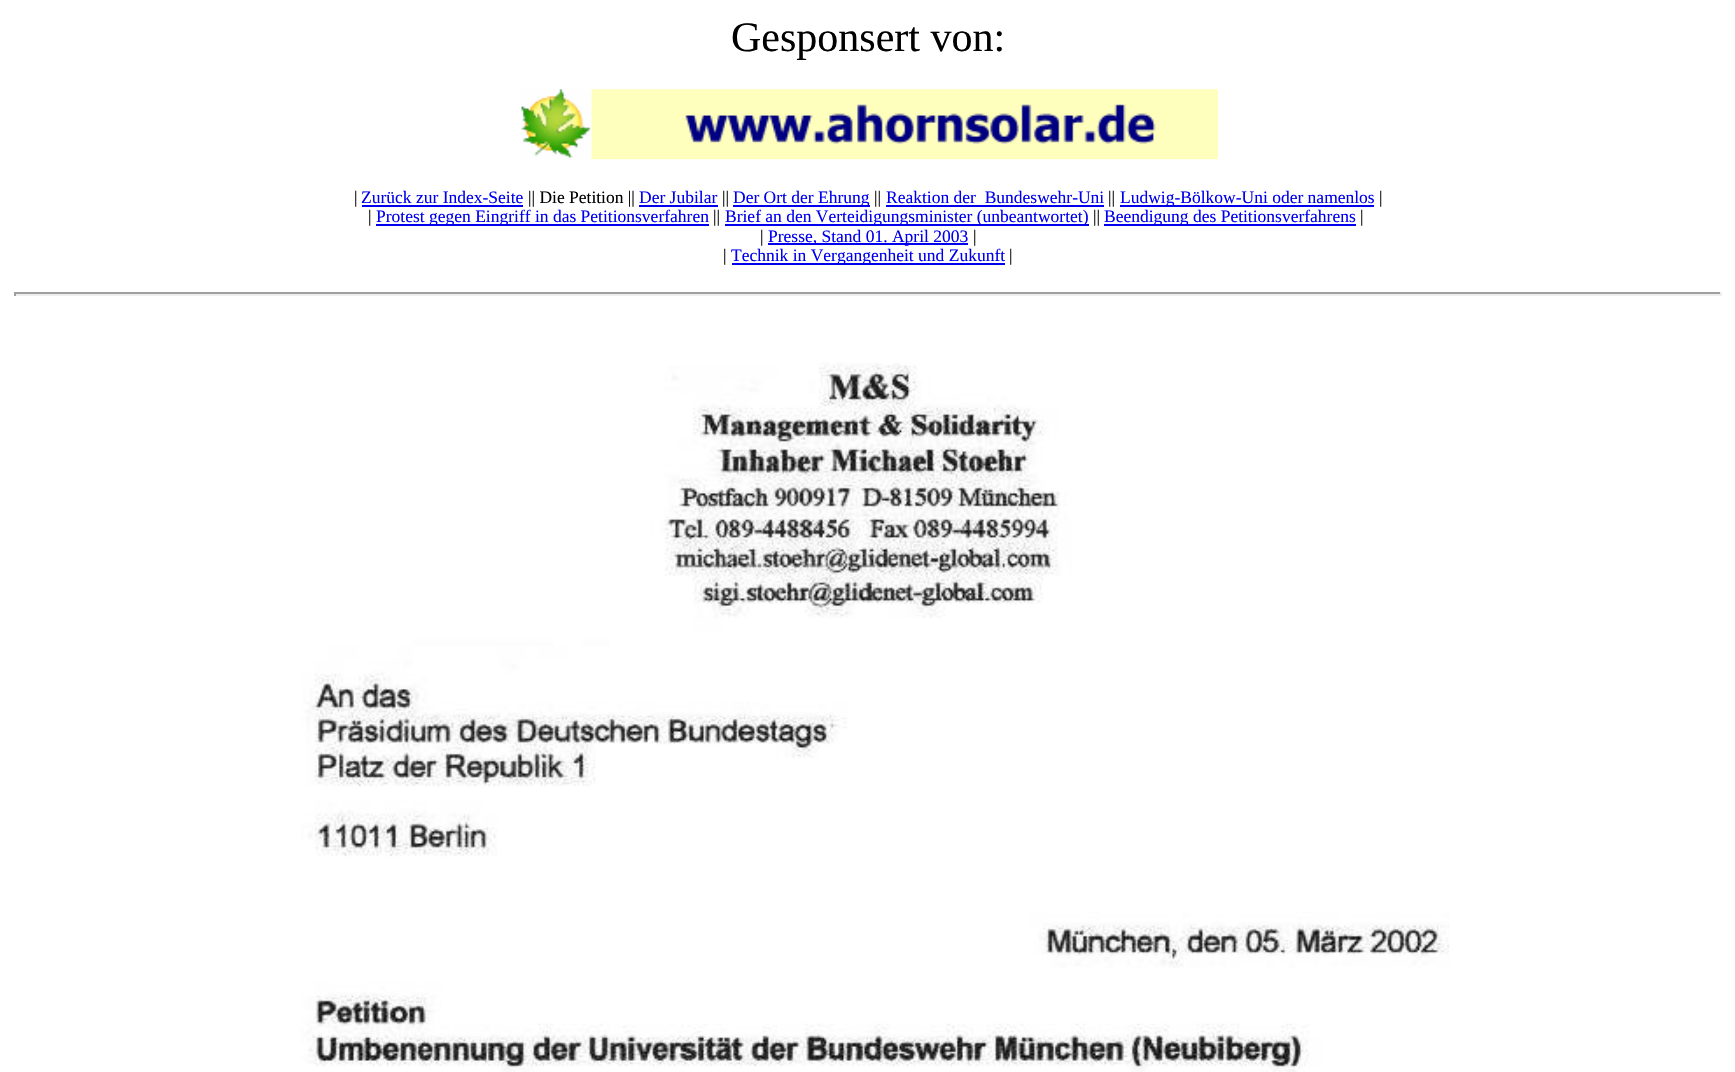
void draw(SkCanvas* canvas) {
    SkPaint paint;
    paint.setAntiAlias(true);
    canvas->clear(0xFFFFFFFF);
    SkFont font1(fontMgr->matchFamilyStyle("Liberation Serif", SkFontStyle::Normal()), 42);
    font1.setSubpixel(true);
    paint.setColor(0xFF000000);
    canvas->drawString("Gesponsert von:", 731, 51, font1, paint);
    canvas->drawImageRect(SkImages::DeferredFromEncodedData(SkData::MakeFromFileName("img1.png")), SkRect::MakeXYWH(521, 89, 697, 71), SkSamplingOptions());
    SkFont font2(fontMgr->matchFamilyStyle("Liberation Serif", SkFontStyle::Normal()), 17.5f);
    font2.setSubpixel(true);
    canvas->drawString("|", 354, 203, font2, paint);
    paint.setColor(0xFF0000EE);
    canvas->drawString("Zurück zur Index-Seite", 361, 203, font2, paint);
    canvas->drawRect(SkRect::MakeXYWH(362, 205, 161, 2), paint);
    paint.setColor(0xFF000000);
    canvas->drawString("|| Die Petition ||", 528, 203, font2, paint);
    paint.setColor(0xFF0000EE);
    canvas->drawString("Der Jubilar", 639, 203, font2, paint);
    canvas->drawRect(SkRect::MakeXYWH(639, 205, 79, 2), paint);
    paint.setColor(0xFF000000);
    canvas->drawString("||", 722, 203, font2, paint);
    paint.setColor(0xFF0000EE);
    canvas->drawRect(SkRect::MakeXYWH(733, 205, 137, 2), paint);
    canvas->drawString("Der Ort der Ehrung", 733, 203, font2, paint);
    paint.setColor(0xFF000000);
    canvas->drawString("||", 874, 203, font2, paint);
    paint.setColor(0xFF0000EE);
    canvas->drawString("Reaktion der  Bundeswehr-Uni", 886, 203, font2, paint);
    canvas->drawRect(SkRect::MakeXYWH(886, 205, 218, 2), paint);
    paint.setColor(0xFF000000);
    canvas->drawString("||", 1108, 203, font2, paint);
    paint.setColor(0xFF0000EE);
    canvas->drawRect(SkRect::MakeXYWH(1120, 205, 254, 2), paint);
    canvas->drawString("Ludwig-Bölkow-Uni oder namenlos", 1120, 203, font2, paint);
    paint.setColor(0xFF000000);
    canvas->drawString("|", 1379, 203, font2, paint);
    canvas->drawString("|", 368, 222, font2, paint);
    paint.setColor(0xFF0000EE);
    canvas->drawRect(SkRect::MakeXYWH(376, 224, 333, 2), paint);
    canvas->drawString("Protest gegen Eingriff in das Petitionsverfahren", 376, 222, font2, paint);
    paint.setColor(0xFF000000);
    canvas->drawString("||", 713, 222, font2, paint);
    paint.setColor(0xFF0000EE);
    canvas->drawRect(SkRect::MakeXYWH(725, 224, 364, 2), paint);
    canvas->drawString("Brief an den Verteidigungsminister (unbeantwortet)", 725, 222, font2, paint);
    paint.setColor(0xFF000000);
    canvas->drawString("||", 1093, 222, font2, paint);
    paint.setColor(0xFF0000EE);
    canvas->drawRect(SkRect::MakeXYWH(1104, 224, 252, 2), paint);
    canvas->drawString("Beendigung des Petitionsverfahrens", 1104, 222, font2, paint);
    paint.setColor(0xFF000000);
    canvas->drawString("|", 1360, 222, font2, paint);
    canvas->drawString("|", 760, 242, font2, paint);
    paint.setColor(0xFF0000EE);
    canvas->drawRect(SkRect::MakeXYWH(768, 243, 200, 2), paint);
    canvas->drawString("Presse, Stand 01. April 2003", 768, 242, font2, paint);
    paint.setColor(0xFF000000);
    canvas->drawString("|", 973, 242, font2, paint);
    canvas->drawString("|", 723, 261, font2, paint);
    paint.setColor(0xFF0000EE);
    canvas->drawRect(SkRect::MakeXYWH(732, 263, 273, 2), paint);
    canvas->drawString("Technik in Vergangenheit und Zukunft", 731, 261, font2, paint);
    paint.setColor(0xFF000000);
    canvas->drawString("|", 1009, 261, font2, paint);
    paint.setColor(0xFF9F9F9F);
    canvas->drawRect(SkRect::MakeXYWH(14, 292, 1708, 2), paint);
    paint.setColor(0xFFEEEEEE);
    canvas->drawRect(SkRect::MakeXYWH(1720, 292, 2, 4), paint);
    canvas->drawRect(SkRect::MakeXYWH(14, 294, 1708, 2), paint);
    paint.setColor(0xFF9F9F9F);
    canvas->drawRect(SkRect::MakeXYWH(14, 292, 2, 4), paint);
    canvas->drawImageRect(SkImages::DeferredFromEncodedData(SkData::MakeFromFileName("img2.png")), SkRect::MakeXYWH(301, 362, 1149, 710), SkSamplingOptions());
}
